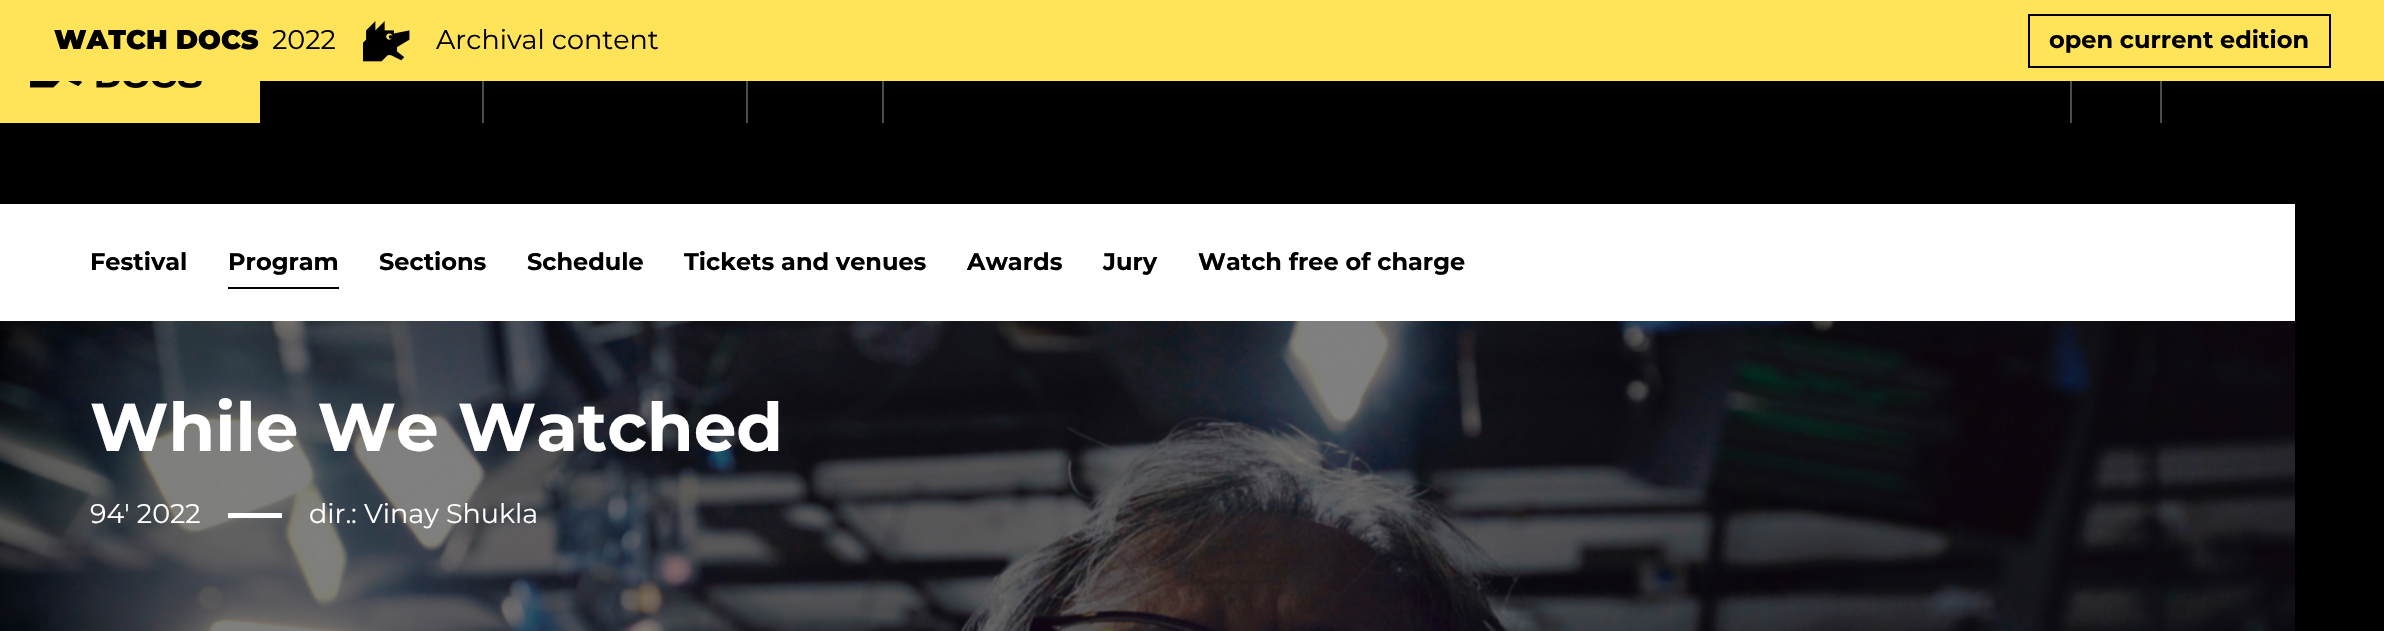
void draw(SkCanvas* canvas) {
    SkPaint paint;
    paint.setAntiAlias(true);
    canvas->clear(0xFF000000);
    paint.setColor(0xFFFFE359);
    canvas->drawRect(SkRect::MakeXYWH(0, 0, 2384, 81), paint);
    SkFont font1(fontMgr->matchFamilyStyle("Montserrat", SkFontStyle(900, SkFontStyle::kNormal_Width, SkFontStyle::kUpright_Slant)), 27);
    font1.setSubpixel(true);
    paint.setColor(0xFF000000);
    canvas->drawString("WATCH DOCS", 54, 49, font1, paint);
    SkFont font2(fontMgr->matchFamilyStyle("Montserrat", SkFontStyle::Normal()), 27);
    font2.setSubpixel(true);
    canvas->drawString("2022", 272, 49, font2, paint);
    canvas->drawImageRect(SkImages::DeferredFromEncodedData(SkData::MakeFromFileName("img1.png")), SkRect::MakeXYWH(363, 21, 47, 41), SkSamplingOptions());
    canvas->drawString("Archival content", 436, 49, font2, paint);
    paint.setStyle(SkPaint::kStroke_Style);
    paint.setStrokeWidth(2);
    canvas->drawRect(SkRect::MakeXYWH(2029, 15, 301, 52), paint);
    SkFont font3(fontMgr->matchFamilyStyle("Montserrat", SkFontStyle::Bold()), 24);
    font3.setSubpixel(true);
    paint.setStyle(SkPaint::kFill_Style);
    canvas->drawString("open current edition", 2049, 48, font3, paint);
    paint.setColor(0xFFFFE359);
    canvas->drawRect(SkRect::MakeXYWH(0, 81, 260, 42), paint);
    canvas->drawImageRect(SkImages::DeferredFromEncodedData(SkData::MakeFromFileName("img2.png")), SkRect::MakeXYWH(30, 81, 172, 7), SkSamplingOptions());
    paint.setColor(0xFF4C4C4C);
    canvas->drawRect(SkRect::MakeXYWH(482, 81, 2, 42), paint);
    canvas->drawRect(SkRect::MakeXYWH(746, 81, 2, 42), paint);
    canvas->drawRect(SkRect::MakeXYWH(882, 81, 2, 42), paint);
    canvas->drawRect(SkRect::MakeXYWH(2070, 81, 2, 42), paint);
    canvas->drawRect(SkRect::MakeXYWH(2160, 81, 2, 42), paint);
    paint.setColor(0xFFFFFFFF);
    canvas->drawRect(SkRect::MakeXYWH(0, 204, 2295, 117), paint);
    paint.setColor(0xFF000000);
    canvas->drawString("Festival", 90, 270, font3, paint);
    canvas->drawString("Program", 228, 270, font3, paint);
    canvas->drawRect(SkRect::MakeXYWH(228, 287, 111, 2), paint);
    canvas->drawString("Sections", 379, 270, font3, paint);
    canvas->drawString("Schedule", 527, 270, font3, paint);
    canvas->drawString("Tickets and venues", 684, 270, font3, paint);
    canvas->drawString("Awards", 967, 270, font3, paint);
    canvas->drawString("Jury", 1103, 270, font3, paint);
    canvas->drawString("Watch free of charge", 1198, 270, font3, paint);
    canvas->drawImageRect(SkImages::DeferredFromEncodedData(SkData::MakeFromFileName("img3.png")), SkRect::MakeXYWH(0, 321, 2295, 310), SkSamplingOptions());
    SkFont font4(fontMgr->matchFamilyStyle("Montserrat", SkFontStyle::Bold()), 67.5f);
    font4.setSubpixel(true);
    paint.setColor(0xFFFFFFFF);
    canvas->drawString("While We Watched", 90, 451, font4, paint);
    canvas->drawString("94' 2022", 90, 523, font2, paint);
    canvas->drawRect(SkRect::MakeXYWH(228, 513, 54, 5), paint);
    canvas->drawString("dir.: Vinay Shukla", 309, 523, font2, paint);
}
